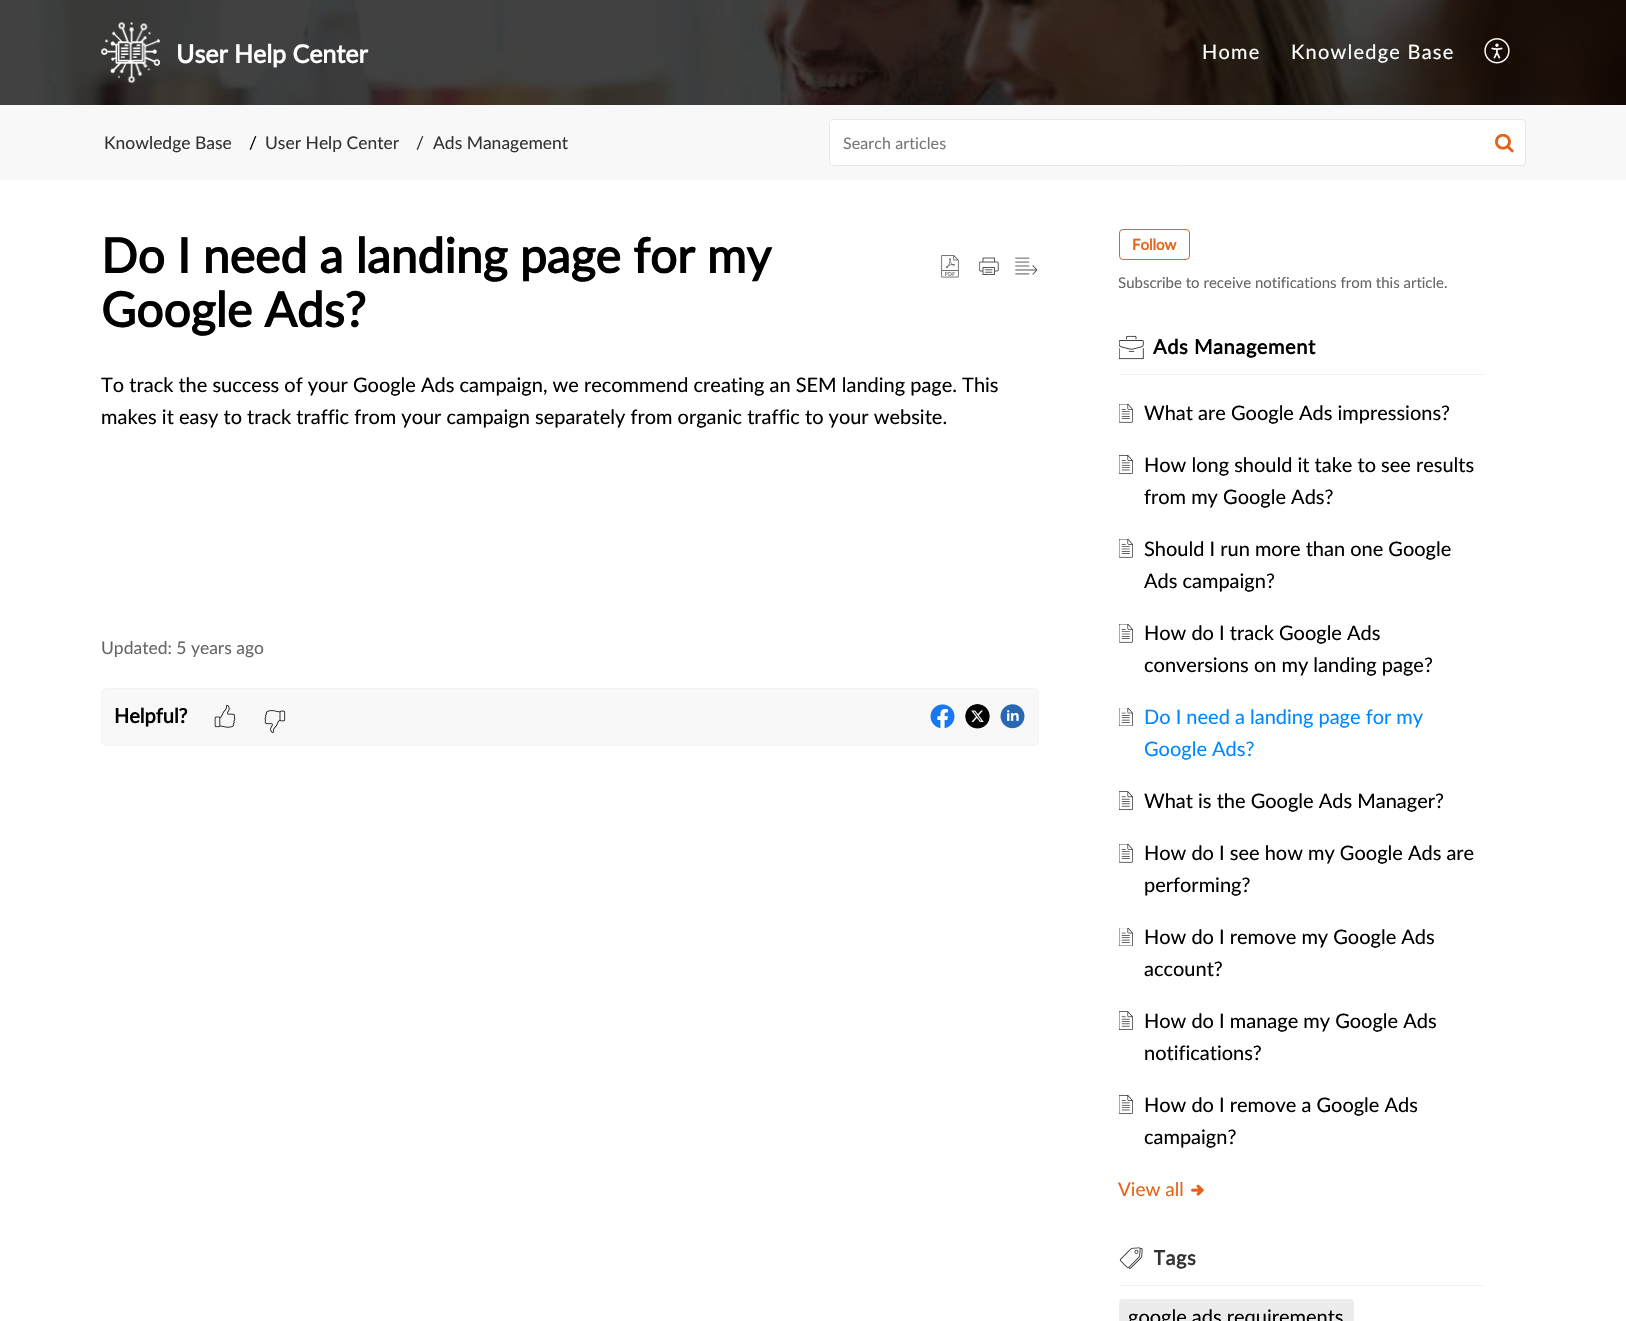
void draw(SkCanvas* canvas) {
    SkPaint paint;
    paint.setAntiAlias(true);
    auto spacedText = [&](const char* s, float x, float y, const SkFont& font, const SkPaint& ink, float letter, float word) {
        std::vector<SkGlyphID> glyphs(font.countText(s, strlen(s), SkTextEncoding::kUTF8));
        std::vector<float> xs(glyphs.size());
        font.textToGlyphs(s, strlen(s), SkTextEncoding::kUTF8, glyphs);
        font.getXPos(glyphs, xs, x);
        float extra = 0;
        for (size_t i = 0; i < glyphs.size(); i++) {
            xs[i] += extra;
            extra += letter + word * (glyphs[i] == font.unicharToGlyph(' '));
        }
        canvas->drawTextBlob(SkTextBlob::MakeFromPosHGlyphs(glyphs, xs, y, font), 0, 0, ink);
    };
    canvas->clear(0xFFFFFFFF);
    canvas->drawImageRect(SkImages::DeferredFromEncodedData(SkData::MakeFromFileName("img1.png")), SkRect::MakeXYWH(0, 0, 1626, 105), SkSamplingOptions());
    canvas->drawImageRect(SkImages::DeferredFromEncodedData(SkData::MakeFromFileName("img2.png")), SkRect::MakeXYWH(101, 22, 59, 61), SkSamplingOptions());
    SkFont font1(fontMgr->matchFamilyStyle("Lato", SkFontStyle::Bold()), 25);
    font1.setSubpixel(true);
    paint.setColor(0xFFFFFFFF);
    canvas->drawString("User Help Center", 176, 63, font1, paint);
    SkFont font2(fontMgr->matchFamilyStyle("Lato", SkFontStyle::Normal()), 20);
    font2.setSubpixel(true);
    spacedText("Home", 1202, 59, font2, paint, 1.25f, 0);
    spacedText("Knowledge Base", 1291, 59, font2, paint, 1.25f, 0);
    canvas->drawImageRect(SkImages::DeferredFromEncodedData(SkData::MakeFromFileName("img3.png")), SkRect::MakeXYWH(1484, 38, 26, 26), SkSamplingOptions());
    paint.setColor(0xFFF8F8F8);
    canvas->drawRect(SkRect::MakeXYWH(0, 105, 1626, 75), paint);
    SkFont font3(fontMgr->matchFamilyStyle("Lato", SkFontStyle::Normal()), 17.5f);
    font3.setSubpixel(true);
    paint.setColor(0xFF333333);
    canvas->drawString("Knowledge Base", 104, 149, font3, paint);
    paint.setColor(0xFF000000);
    canvas->drawString("/", 249, 149, font3, paint);
    paint.setColor(0xFF333333);
    canvas->drawString("User Help Center", 265, 149, font3, paint);
    canvas->drawString("/", 416, 149, font3, paint);
    canvas->drawString("Ads Management", 433, 149, font3, paint);
    paint.setColor(0xFFFFFFFF);
    canvas->drawRoundRect(SkRect::MakeXYWH(829.5f, 119.5f, 696, 46), 3.5f, 3.5f, paint);
    paint.setStyle(SkPaint::kStroke_Style);
    paint.setStrokeWidth(1);
    paint.setColor(0xFFE5E8EA);
    canvas->drawRoundRect(SkRect::MakeXYWH(829.5f, 119.5f, 696, 46), 3.5f, 3.5f, paint);
    SkFont font4(fontMgr->matchFamilyStyle("Lato", SkFontStyle::Normal()), 16);
    font4.setSubpixel(true);
    paint.setStyle(SkPaint::kFill_Style);
    paint.setColor(0xFF777777);
    spacedText("Search articles", 843, 149, font4, paint, 0.1f, 0);
    canvas->drawImageRect(SkImages::DeferredFromEncodedData(SkData::MakeFromFileName("img4.png")), SkRect::MakeXYWH(1495, 134, 19, 19), SkSamplingOptions());
    SkFont font5(fontMgr->matchFamilyStyle("Lato", SkFontStyle::Bold()), 48);
    font5.setSubpixel(true);
    paint.setColor(0xFF000000);
    canvas->drawString("Do I need a landing page for my", 101, 273, font5, paint);
    canvas->drawString("Google Ads?", 101, 327, font5, paint);
    canvas->drawImageRect(SkImages::DeferredFromEncodedData(SkData::MakeFromFileName("img5.png")), SkRect::MakeXYWH(941, 255, 18, 23), SkSamplingOptions());
    canvas->drawImageRect(SkImages::DeferredFromEncodedData(SkData::MakeFromFileName("img6.png")), SkRect::MakeXYWH(979, 257, 20, 18), SkSamplingOptions());
    canvas->drawImageRect(SkImages::DeferredFromEncodedData(SkData::MakeFromFileName("img7.png")), SkRect::MakeXYWH(1015, 257, 23, 18), SkSamplingOptions());
    canvas->drawString("To track the success of your Google Ads campaign, we recommend creating an SEM landing page. This", 101, 392, font2, paint);
    canvas->drawString("makes it easy to track traffic from your campaign separately from organic traffic to your website.", 101, 424, font2, paint);
    paint.setColor(0xFF666666);
    canvas->drawString("Updated: 5 years ago", 101, 654, font3, paint);
    paint.setColor(0xFFF8F8F8);
    canvas->drawRoundRect(SkRect::MakeXYWH(101.5f, 688.5f, 937, 57), 5.5f, 5.5f, paint);
    paint.setStyle(SkPaint::kStroke_Style);
    paint.setColor(0xFFF3F3F3);
    canvas->drawRoundRect(SkRect::MakeXYWH(101.5f, 688.5f, 937, 57), 5.5f, 5.5f, paint);
    SkFont font6(fontMgr->matchFamilyStyle("Lato", SkFontStyle::Bold()), 20);
    font6.setSubpixel(true);
    paint.setStyle(SkPaint::kFill_Style);
    paint.setColor(0xFF000000);
    canvas->drawString("Helpful?", 114, 723, font6, paint);
    canvas->drawImageRect(SkImages::DeferredFromEncodedData(SkData::MakeFromFileName("img8.png")), SkRect::MakeXYWH(214, 704, 22, 24), SkSamplingOptions());
    canvas->drawImageRect(SkImages::DeferredFromEncodedData(SkData::MakeFromFileName("img9.png")), SkRect::MakeXYWH(264, 710, 22, 23), SkSamplingOptions());
    canvas->drawImageRect(SkImages::DeferredFromEncodedData(SkData::MakeFromFileName("img10.png")), SkRect::MakeXYWH(930, 704, 25, 25), SkSamplingOptions());
    canvas->drawImageRect(SkImages::DeferredFromEncodedData(SkData::MakeFromFileName("img11.png")), SkRect::MakeXYWH(965, 704, 25, 25), SkSamplingOptions());
    canvas->drawImageRect(SkImages::DeferredFromEncodedData(SkData::MakeFromFileName("img12.png")), SkRect::MakeXYWH(1000, 704, 25, 25), SkSamplingOptions());
    paint.setStyle(SkPaint::kStroke_Style);
    paint.setColor(0xFFE46317);
    canvas->drawRoundRect(SkRect::MakeXYWH(1119.5f, 229.5f, 70, 30), 3.5f, 3.5f, paint);
    SkFont font7(fontMgr->matchFamilyStyle("Lato", SkFontStyle::Bold()), 15);
    font7.setSubpixel(true);
    paint.setStyle(SkPaint::kFill_Style);
    canvas->drawString("Follow", 1132, 250, font7, paint);
    SkFont font8(fontMgr->matchFamilyStyle("Lato", SkFontStyle::Normal()), 15);
    font8.setSubpixel(true);
    paint.setColor(0xFF666666);
    canvas->drawString("Subscribe to receive notifications from this article.", 1118, 288, font8, paint);
    paint.setColor(0xFFEFEFEF);
    canvas->drawRect(SkRect::MakeXYWH(1119, 374, 365, 1), paint);
    canvas->drawImageRect(SkImages::DeferredFromEncodedData(SkData::MakeFromFileName("img13.png")), SkRect::MakeXYWH(1119, 335, 25, 25), SkSamplingOptions());
    paint.setColor(0xFF000000);
    spacedText("Ads Management", 1153, 354, font6, paint, 0.6f, 0);
    canvas->drawImageRect(SkImages::DeferredFromEncodedData(SkData::MakeFromFileName("img14.png")), SkRect::MakeXYWH(1119, 404, 14, 19), SkSamplingOptions());
    canvas->drawString("What are Google Ads impressions?", 1144, 420, font2, paint);
    canvas->drawImageRect(SkImages::DeferredFromEncodedData(SkData::MakeFromFileName("img15.png")), SkRect::MakeXYWH(1119, 455, 14, 19), SkSamplingOptions());
    canvas->drawString("How long should it take to see results", 1144, 472, font2, paint);
    canvas->drawString("from my Google Ads?", 1144, 504, font2, paint);
    canvas->drawImageRect(SkImages::DeferredFromEncodedData(SkData::MakeFromFileName("img14.png")), SkRect::MakeXYWH(1119, 539, 14, 19), SkSamplingOptions());
    canvas->drawString("Should I run more than one Google", 1144, 556, font2, paint);
    canvas->drawString("Ads campaign?", 1144, 588, font2, paint);
    canvas->drawImageRect(SkImages::DeferredFromEncodedData(SkData::MakeFromFileName("img14.png")), SkRect::MakeXYWH(1119, 624, 14, 19), SkSamplingOptions());
    canvas->drawString("How do I track Google Ads", 1144, 640, font2, paint);
    canvas->drawString("conversions on my landing page?", 1144, 672, font2, paint);
    canvas->drawImageRect(SkImages::DeferredFromEncodedData(SkData::MakeFromFileName("img16.png")), SkRect::MakeXYWH(1119, 708, 14, 18), SkSamplingOptions());
    paint.setColor(0xFF0088FF);
    canvas->drawString("Do I need a landing page for my", 1144, 724, font2, paint);
    canvas->drawString("Google Ads?", 1144, 756, font2, paint);
    canvas->drawImageRect(SkImages::DeferredFromEncodedData(SkData::MakeFromFileName("img17.png")), SkRect::MakeXYWH(1119, 791, 14, 19), SkSamplingOptions());
    paint.setColor(0xFF000000);
    canvas->drawString("What is the Google Ads Manager?", 1144, 808, font2, paint);
    canvas->drawImageRect(SkImages::DeferredFromEncodedData(SkData::MakeFromFileName("img14.png")), SkRect::MakeXYWH(1119, 844, 14, 19), SkSamplingOptions());
    canvas->drawString("How do I see how my Google Ads are", 1144, 860, font2, paint);
    canvas->drawString("performing?", 1144, 892, font2, paint);
    canvas->drawImageRect(SkImages::DeferredFromEncodedData(SkData::MakeFromFileName("img16.png")), SkRect::MakeXYWH(1119, 928, 14, 18), SkSamplingOptions());
    canvas->drawString("How do I remove my Google Ads", 1144, 944, font2, paint);
    canvas->drawString("account?", 1144, 976, font2, paint);
    canvas->drawImageRect(SkImages::DeferredFromEncodedData(SkData::MakeFromFileName("img17.png")), SkRect::MakeXYWH(1119, 1011, 14, 19), SkSamplingOptions());
    canvas->drawString("How do I manage my Google Ads", 1144, 1028, font2, paint);
    canvas->drawString("notifications?", 1144, 1060, font2, paint);
    canvas->drawImageRect(SkImages::DeferredFromEncodedData(SkData::MakeFromFileName("img15.png")), SkRect::MakeXYWH(1119, 1095, 14, 19), SkSamplingOptions());
    canvas->drawString("How do I remove a Google Ads", 1144, 1112, font2, paint);
    canvas->drawString("campaign?", 1144, 1144, font2, paint);
    SkFont font9(fontMgr->matchFamilyStyle("Lato", SkFontStyle::Normal()), 19);
    font9.setSubpixel(true);
    paint.setColor(0xFFE46317);
    canvas->drawString("View all", 1118, 1196, font9, paint);
    canvas->drawImageRect(SkImages::DeferredFromEncodedData(SkData::MakeFromFileName("img18.png")), SkRect::MakeXYWH(1191, 1184, 14, 12), SkSamplingOptions());
    paint.setColor(0xFFEFEFEF);
    canvas->drawRect(SkRect::MakeXYWH(1119, 1285, 365, 1), paint);
    canvas->drawImageRect(SkImages::DeferredFromEncodedData(SkData::MakeFromFileName("img19.png")), SkRect::MakeXYWH(1119, 1247, 24, 22), SkSamplingOptions());
    canvas->save();
    canvas->clipRect(SkRect::MakeXYWH(1154, 1243, 330, 32));
    paint.setColor(0xFF333333);
    spacedText("Tags", 1153, 1265, font6, paint, 0.6f, 0);
    canvas->restore();
    paint.setColor(0xFFECECEC);
    canvas->drawRoundRect(SkRect::MakeXYWH(1119, 1299, 235, 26), 4, 4, paint);
    paint.setColor(0xFF000000);
    canvas->drawString("google ads requirements", 1128, 1324, font2, paint);
}
